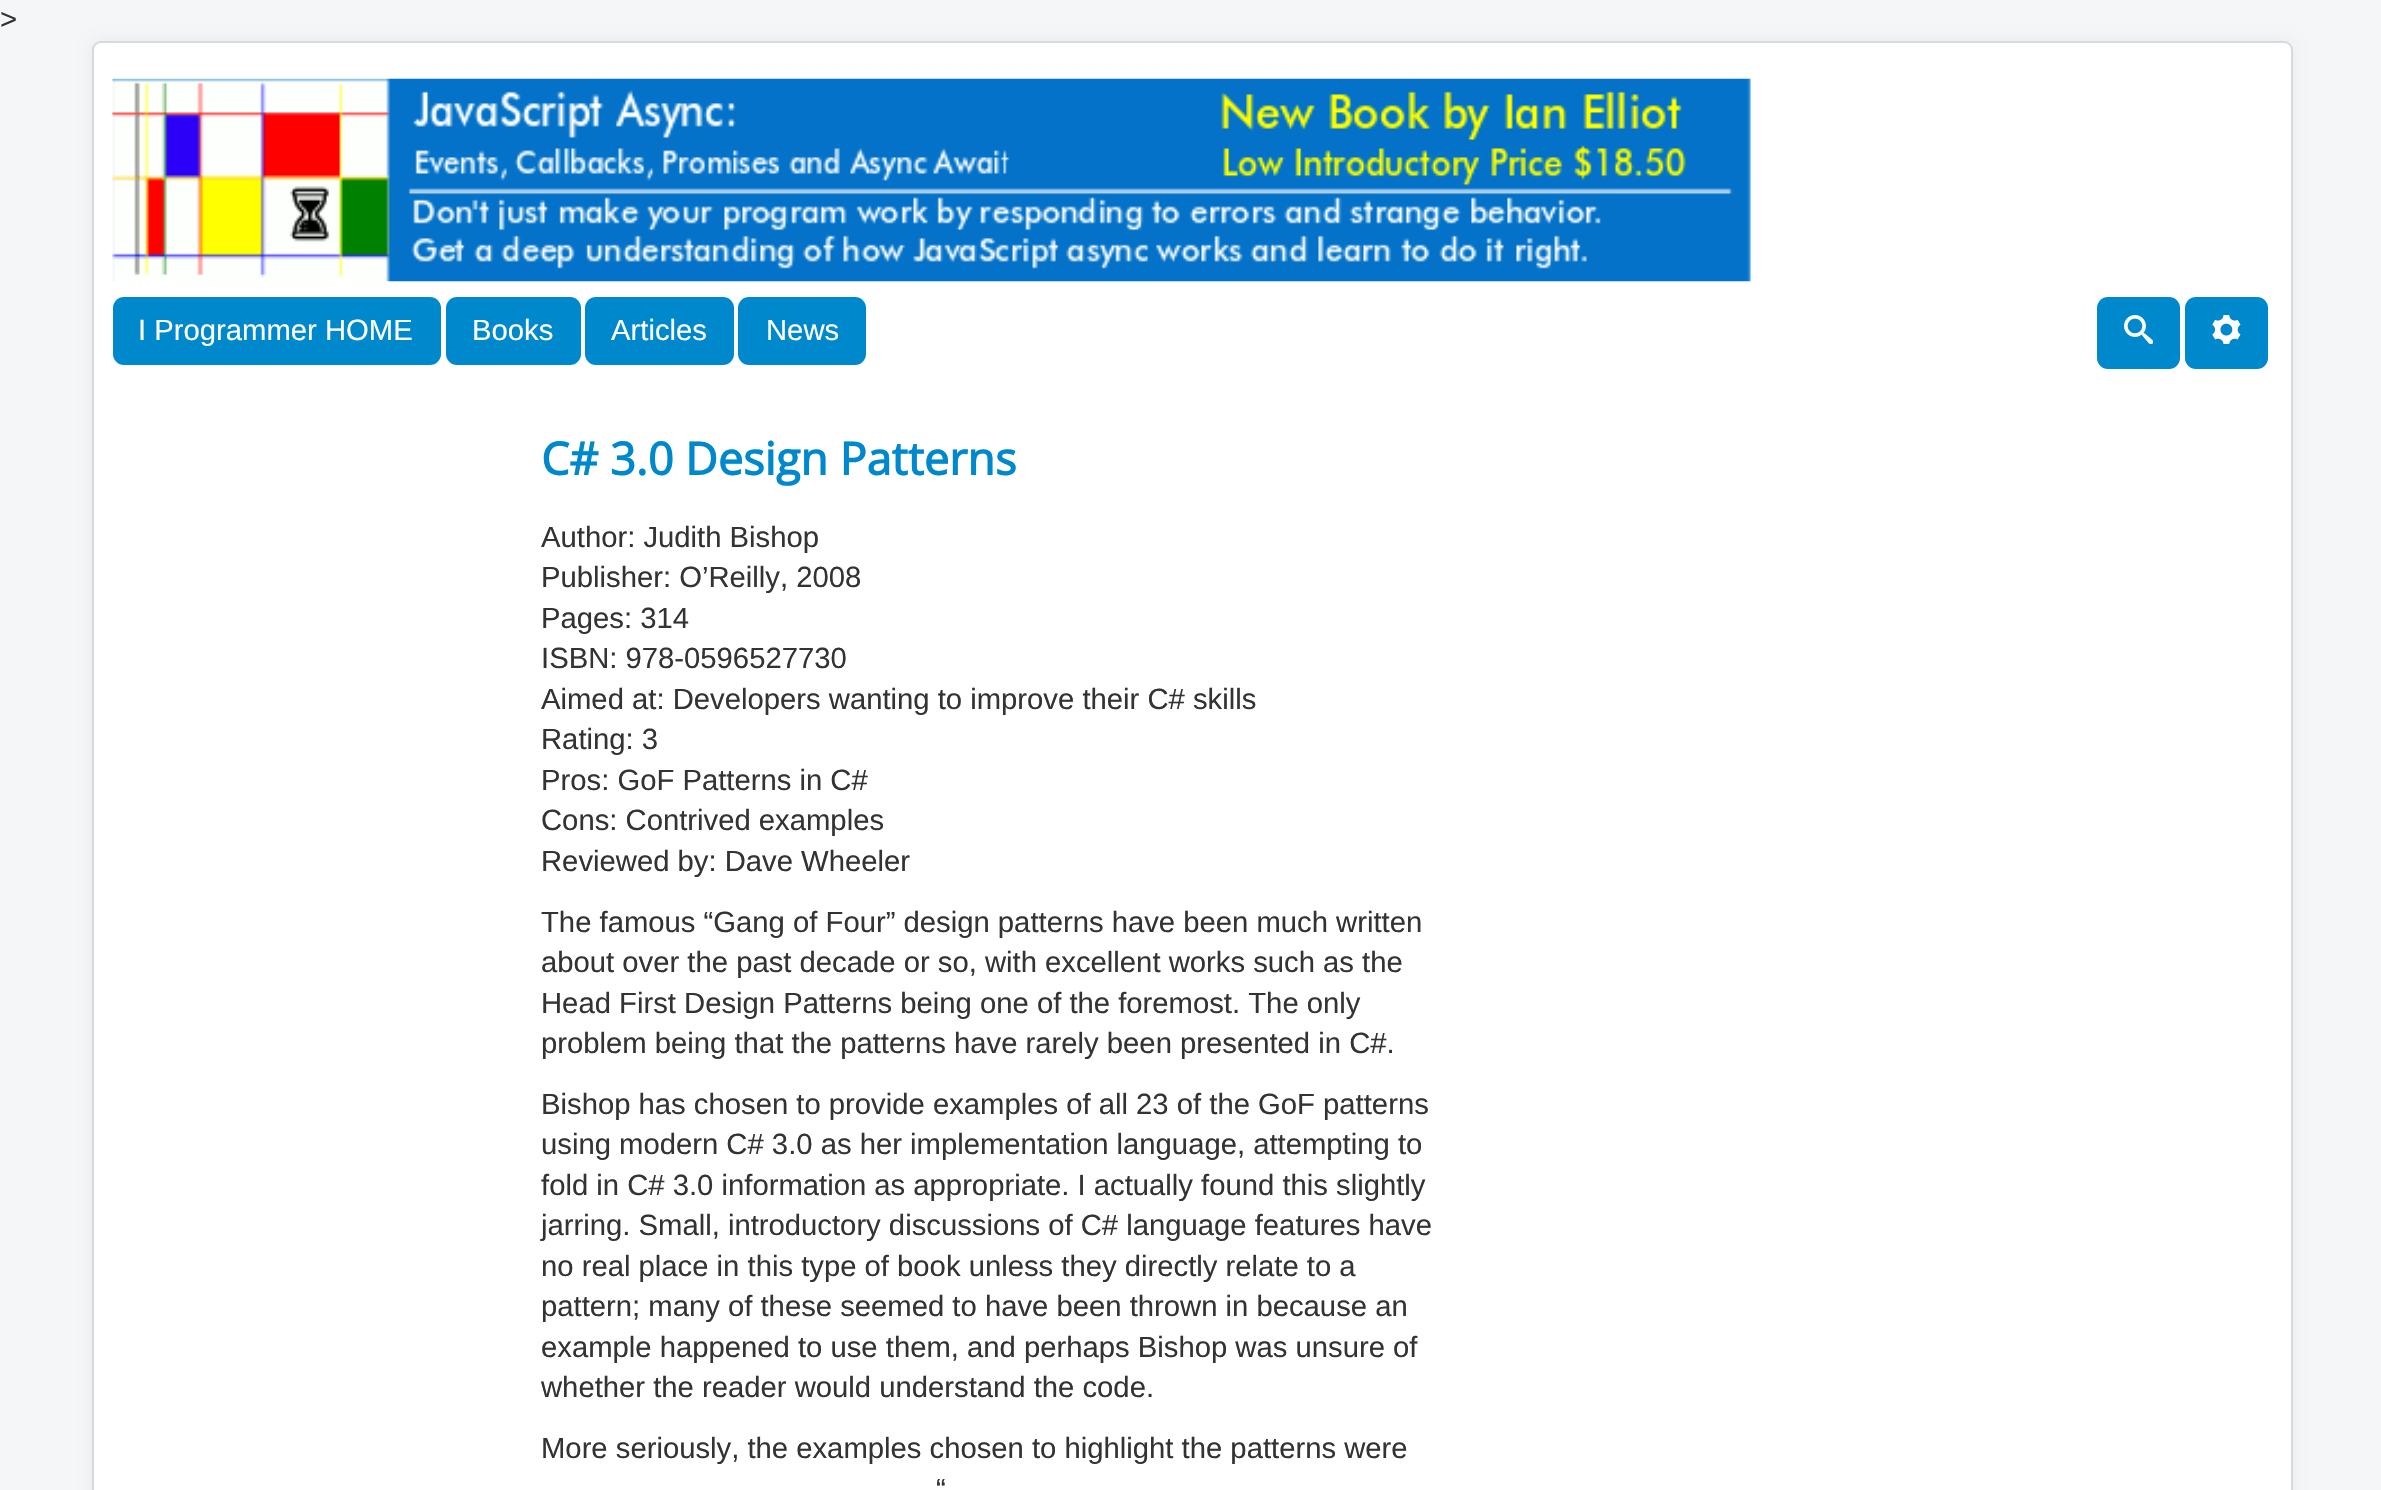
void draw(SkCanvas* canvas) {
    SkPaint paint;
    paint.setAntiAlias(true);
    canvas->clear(0xFFF4F6F7);
    SkFont font1(fontMgr->matchFamilyStyle("Liberation Sans", SkFontStyle::Normal()), 29.25f);
    font1.setSubpixel(true);
    paint.setColor(0xFF333333);
    canvas->drawString(">", 0, 29, font1, paint);
    paint.setColor(0x0D000000);
    paint.setMaskFilter(SkMaskFilter::MakeBlur(kNormal_SkBlurStyle, 7));
    canvas->drawRoundRect(SkRect::MakeXYWH(92, 41, 2201, 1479), 9, 9, paint);
    paint.setMaskFilter(nullptr);
    paint.setColor(0xFFFFFFFF);
    canvas->drawRoundRect(SkRect::MakeXYWH(92, 41, 2201, 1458), 9, 9, paint);
    paint.setStyle(SkPaint::kStroke_Style);
    paint.setStrokeWidth(2);
    paint.setColor(0x26000000);
    canvas->drawRoundRect(SkRect::MakeXYWH(93, 42, 2199, 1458), 8, 8, paint);
    canvas->drawImageRect(SkImages::DeferredFromEncodedData(SkData::MakeFromFileName("img1.png")), SkRect::MakeXYWH(112, 78, 1639, 204), SkSamplingOptions());
    paint.setStyle(SkPaint::kFill_Style);
    paint.setColor(0xFF0088CC);
    canvas->drawRoundRect(SkRect::MakeXYWH(113, 297, 328, 68), 11, 11, paint);
    paint.setColor(0xFFFFFFFF);
    canvas->drawString("I Programmer HOME", 138, 340, font1, paint);
    paint.setColor(0xFF0088CC);
    canvas->drawRoundRect(SkRect::MakeXYWH(446, 297, 135, 68), 11, 11, paint);
    paint.setColor(0xFFFFFFFF);
    canvas->drawString("Books", 472, 340, font1, paint);
    paint.setColor(0xFF0088CC);
    canvas->drawRoundRect(SkRect::MakeXYWH(585, 297, 149, 68), 11, 11, paint);
    paint.setColor(0xFFFFFFFF);
    canvas->drawString("Articles", 611, 340, font1, paint);
    paint.setColor(0xFF0088CC);
    canvas->drawRoundRect(SkRect::MakeXYWH(738, 297, 128, 68), 11, 11, paint);
    paint.setColor(0xFFFFFFFF);
    canvas->drawString("News", 766, 340, font1, paint);
    paint.setColor(0xFF0088CC);
    canvas->drawRoundRect(SkRect::MakeXYWH(2097, 297, 83, 72), 11, 11, paint);
    canvas->drawImageRect(SkImages::DeferredFromEncodedData(SkData::MakeFromFileName("img2.png")), SkRect::MakeXYWH(2124, 315, 29, 29), SkSamplingOptions());
    canvas->drawRoundRect(SkRect::MakeXYWH(2185, 297, 83, 72), 11, 11, paint);
    canvas->drawImageRect(SkImages::DeferredFromEncodedData(SkData::MakeFromFileName("img3.png")), SkRect::MakeXYWH(2212, 315, 29, 29), SkSamplingOptions());
    SkFont font2(fontMgr->matchFamilyStyle("Open Sans", SkFontStyle::Bold()), 45);
    font2.setSubpixel(true);
    canvas->drawString("C# 3.0 Design Patterns", 541, 475, font2, paint);
    paint.setColor(0xFF333333);
    canvas->drawString("Author: Judith Bishop", 541, 547, font1, paint);
    canvas->drawString("Publisher: O’Reilly, 2008", 541, 587, font1, paint);
    canvas->drawString("Pages: 314", 541, 628, font1, paint);
    canvas->drawString("ISBN: 978-0596527730", 541, 668, font1, paint);
    canvas->drawString("Aimed at: Developers wanting to improve their C# skills", 541, 709, font1, paint);
    canvas->drawString("Rating: 3", 541, 749, font1, paint);
    canvas->drawString("Pros: GoF Patterns in C#", 541, 790, font1, paint);
    canvas->drawString("Cons: Contrived examples", 541, 830, font1, paint);
    canvas->drawString("Reviewed by: Dave Wheeler", 541, 871, font1, paint);
    canvas->drawString("The famous “Gang of Four” design patterns have been much written", 541, 932, font1, paint);
    canvas->drawString("about over the past decade or so, with excellent works such as the", 541, 972, font1, paint);
    canvas->drawString("Head First Design Patterns being one of the foremost. The only", 541, 1013, font1, paint);
    canvas->drawString("problem being that the patterns have rarely been presented in C#.", 541, 1053, font1, paint);
    canvas->drawString("Bishop has chosen to provide examples of all 23 of the GoF patterns", 541, 1114, font1, paint);
    canvas->drawString("using modern C# 3.0 as her implementation language, attempting to", 541, 1154, font1, paint);
    canvas->drawString("fold in C# 3.0 information as appropriate. I actually found this slightly", 541, 1195, font1, paint);
    canvas->drawString("jarring. Small, introductory discussions of C# language features have", 541, 1235, font1, paint);
    canvas->drawString("no real place in this type of book unless they directly relate to a", 541, 1276, font1, paint);
    canvas->drawString("pattern; many of these seemed to have been thrown in because an", 541, 1316, font1, paint);
    canvas->drawString("example happened to use them, and perhaps Bishop was unsure of", 541, 1357, font1, paint);
    canvas->drawString("whether the reader would understand the code.", 541, 1397, font1, paint);
    canvas->drawString("More seriously, the examples chosen to highlight the patterns were", 541, 1458, font1, paint);
    canvas->drawString("“", 936, 1499, font1, paint);
}
